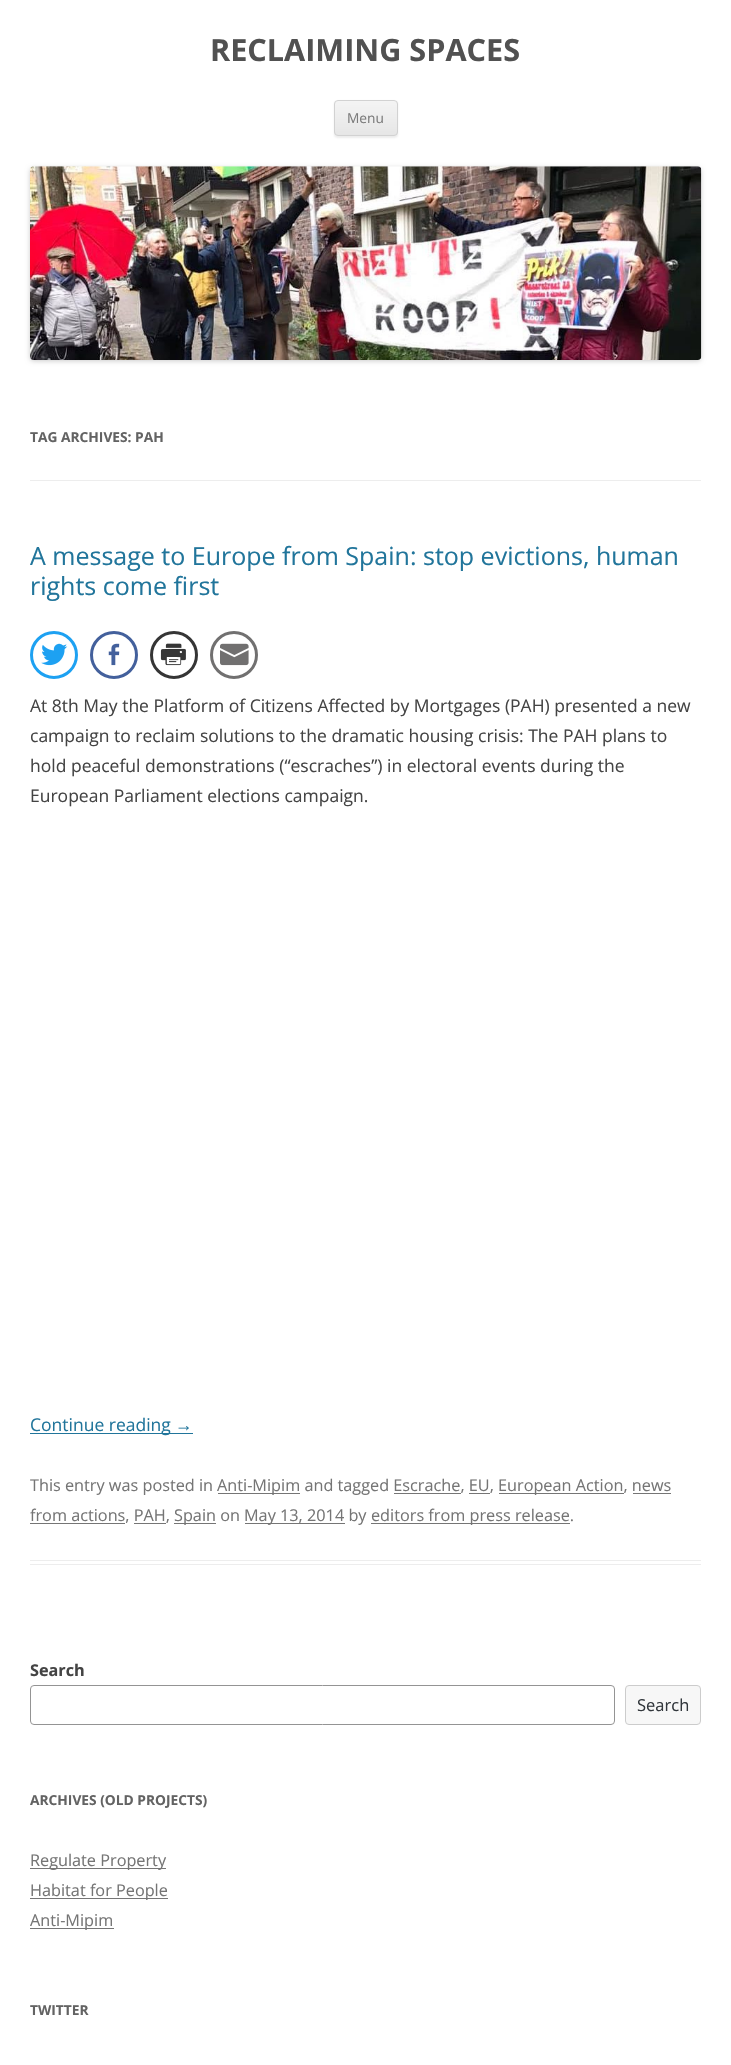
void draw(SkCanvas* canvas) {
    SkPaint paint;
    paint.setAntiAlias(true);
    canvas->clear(0xFFFFFFFF);
    SkFont font1(fontMgr->matchFamilyStyle("Open Sans", SkFontStyle::Bold()), 30.6f);
    font1.setSubpixel(true);
    paint.setColor(0xFF515151);
    canvas->drawString("RECLAIMING SPACES", 210, 61, font1, paint);
    paint.setColor(0x1A404040);
    paint.setMaskFilter(SkMaskFilter::MakeBlur(kNormal_SkBlurStyle, 1));
    canvas->drawRoundRect(SkRect::MakeXYWH(334, 101, 64, 37), 4, 4, paint);
    paint.setMaskFilter(nullptr);
    canvas->save();
    canvas->clipPath(SkPathBuilder().moveTo(338, 100).lineTo(394, 100).cubicTo(396, 100, 398, 102, 398, 104).lineTo(398, 132).cubicTo(398, 134, 396, 136, 394, 136).lineTo(338, 136).cubicTo(336, 136, 334, 134, 334, 132).lineTo(334, 104).cubicTo(334, 102, 336, 100, 338, 100).close().detach(), true);
    {
        const SkColor colors[] = {0xFFF4F4F4, 0xFFE6E6E6};
        const float stops[] = {0, 1};
        const SkPoint ends[] = {{366, 101}, {366, 135}};
        paint.setShader(SkGradientShader::MakeLinear(ends, colors, stops, 2, SkTileMode::kClamp));
        paint.setAlpha(255);
    }
    canvas->drawRect(SkRect::MakeXYWH(334, 101, 64, 34), paint);
    canvas->restore();
    paint.setStyle(SkPaint::kStroke_Style);
    paint.setStrokeWidth(1);
    paint.setShader(nullptr);
    paint.setColor(0xFFD2D2D2);
    canvas->drawRoundRect(SkRect::MakeXYWH(334.5f, 100.5f, 63, 35), 3.5f, 3.5f, paint);
    SkFont font2(fontMgr->matchFamilyStyle("Open Sans", SkFontStyle::Normal()), 13.75f);
    font2.setSubpixel(true);
    paint.setStyle(SkPaint::kFill_Style);
    paint.setColor(0xFF7C7C7C);
    canvas->drawString("Menu", 347, 123, font2, paint);
    paint.setColor(0x33000000);
    paint.setMaskFilter(SkMaskFilter::MakeBlur(kNormal_SkBlurStyle, 2.5f));
    canvas->drawRoundRect(SkRect::MakeXYWH(30, 168, 671, 193), 4, 4, paint);
    paint.setMaskFilter(nullptr);
    canvas->drawImageRect(SkImages::DeferredFromEncodedData(SkData::MakeFromFileName("img1.png")), SkRect::MakeXYWH(30, 166, 672, 194), SkSamplingOptions());
    paint.setColor(0xFFEDEDED);
    canvas->drawRect(SkRect::MakeXYWH(30, 480, 671, 1), paint);
    SkFont font3(fontMgr->matchFamilyStyle("Open Sans", SkFontStyle::Bold()), 13.75f);
    font3.setSubpixel(true);
    paint.setColor(0xFF636363);
    canvas->drawString("TAG ARCHIVES: PAH", 30, 442, font3, paint);
    paint.setColor(0xFFEDEDED);
    canvas->drawRect(SkRect::MakeXYWH(30, 1560, 671, 1), paint);
    canvas->drawRect(SkRect::MakeXYWH(30, 1564, 671, 1), paint);
    SkFont font4(fontMgr->matchFamilyStyle("Open Sans", SkFontStyle::Normal()), 25);
    font4.setSubpixel(true);
    paint.setColor(0xFF21759B);
    canvas->drawString("A message to Europe from Spain: stop evictions, human", 30, 565, font4, paint);
    canvas->drawString("rights come first", 30, 595, font4, paint);
    paint.setStyle(SkPaint::kStroke_Style);
    paint.setStrokeWidth(3);
    paint.setColor(0xFF1DA1F2);
    canvas->drawCircle(54, 655, 22.5f, paint);
    canvas->drawImageRect(SkImages::DeferredFromEncodedData(SkData::MakeFromFileName("img2.png")), SkRect::MakeXYWH(41, 643, 27, 23), SkSamplingOptions());
    paint.setColor(0xFF43609C);
    canvas->drawCircle(114, 655, 22.5f, paint);
    canvas->drawImageRect(SkImages::DeferredFromEncodedData(SkData::MakeFromFileName("img3.png")), SkRect::MakeXYWH(108, 643, 12, 23), SkSamplingOptions());
    paint.setColor(0xFF353535);
    canvas->drawCircle(174, 655, 22.5f, paint);
    canvas->drawImageRect(SkImages::DeferredFromEncodedData(SkData::MakeFromFileName("img4.png")), SkRect::MakeXYWH(160, 643, 26, 23), SkSamplingOptions());
    paint.setColor(0xFF717070);
    canvas->drawCircle(234, 655, 22.5f, paint);
    canvas->drawImageRect(SkImages::DeferredFromEncodedData(SkData::MakeFromFileName("img5.png")), SkRect::MakeXYWH(220, 643, 29, 23), SkSamplingOptions());
    SkFont font5(fontMgr->matchFamilyStyle("Open Sans", SkFontStyle::Normal()), 17.5f);
    font5.setSubpixel(true);
    paint.setStyle(SkPaint::kFill_Style);
    paint.setColor(0xFF444444);
    canvas->drawString("At 8th May the Platform of Citizens Affected by Mortgages (PAH) presented a new", 30, 712, font5, paint);
    canvas->drawString("campaign to reclaim solutions to the dramatic housing crisis: The PAH plans to", 30, 742, font5, paint);
    canvas->drawString("hold peaceful demonstrations (“escraches”) in electoral events during the", 30, 772, font5, paint);
    canvas->drawString("European Parliament elections campaign.", 30, 802, font5, paint);
    paint.setColor(0xFF21759B);
    canvas->drawRect(SkRect::MakeXYWH(30, 1433, 163, 1), paint);
    canvas->drawString("Continue reading", 30, 1431, font5, paint);
    SkFont font6(fontMgr->matchFamilyStyle("Liberation Sans", SkFontStyle::Normal()), 17.5f);
    font6.setSubpixel(true);
    canvas->drawString("→", 175, 1431, font6, paint);
    SkFont font7(fontMgr->matchFamilyStyle("Open Sans", SkFontStyle::Normal()), 16.25f);
    font7.setSubpixel(true);
    paint.setColor(0xFF757575);
    canvas->drawString("This entry was posted in", 30, 1491, font7, paint);
    canvas->drawRect(SkRect::MakeXYWH(218, 1493, 82, 1), paint);
    canvas->drawString("Anti-Mipim and tagged Escrache, EU,", 217, 1491, font7, paint);
    canvas->drawRect(SkRect::MakeXYWH(499, 1493, 125, 1), paint);
    canvas->drawString("European Action, news", 498, 1491, font7, paint);
    canvas->drawRect(SkRect::MakeXYWH(394, 1493, 67, 1), paint);
    canvas->drawRect(SkRect::MakeXYWH(469, 1493, 21, 1), paint);
    canvas->drawRect(SkRect::MakeXYWH(30, 1523, 95, 1), paint);
    canvas->drawString("from actions, PAH,", 30, 1521, font7, paint);
    canvas->drawRect(SkRect::MakeXYWH(633, 1493, 38, 1), paint);
    canvas->drawRect(SkRect::MakeXYWH(174, 1523, 42, 1), paint);
    canvas->drawString("Spain on", 174, 1521, font7, paint);
    canvas->drawRect(SkRect::MakeXYWH(245, 1523, 100, 1), paint);
    canvas->drawString("May 13, 2014 by", 244, 1521, font7, paint);
    canvas->drawRect(SkRect::MakeXYWH(371, 1523, 199, 1), paint);
    canvas->drawString("editors from press release.", 371, 1521, font7, paint);
    canvas->drawRect(SkRect::MakeXYWH(134, 1523, 32, 1), paint);
    SkFont font8(fontMgr->matchFamilyStyle("Open Sans", SkFontStyle::Bold()), 16.25f);
    font8.setSubpixel(true);
    paint.setColor(0xFF444444);
    canvas->drawString("Search", 30, 1676, font8, paint);
    paint.setStyle(SkPaint::kStroke_Style);
    paint.setStrokeWidth(1);
    paint.setColor(0xFF949494);
    canvas->drawRoundRect(SkRect::MakeXYWH(30.5f, 1685.5f, 584, 39), 3.5f, 3.5f, paint);
    paint.setStyle(SkPaint::kFill_Style);
    paint.setColor(0xFFF7F7F7);
    canvas->drawRoundRect(SkRect::MakeXYWH(625.5f, 1685.5f, 75, 39), 3.5f, 3.5f, paint);
    paint.setStyle(SkPaint::kStroke_Style);
    paint.setColor(0xFFCCCCCC);
    canvas->drawRoundRect(SkRect::MakeXYWH(625.5f, 1685.5f, 75, 39), 3.5f, 3.5f, paint);
    SkFont font9(fontMgr->matchFamilyStyle("Open Sans", SkFontStyle::Normal()), 16.5f);
    font9.setSubpixel(true);
    paint.setStyle(SkPaint::kFill_Style);
    paint.setColor(0xFF32373C);
    canvas->drawString("Search", 637, 1711, font9, paint);
    paint.setColor(0xFF636363);
    canvas->drawString("ARCHIVES (OLD PROJECTS)", 30, 1805, font3, paint);
    paint.setColor(0xFF757575);
    canvas->drawRect(SkRect::MakeXYWH(30, 1868, 136, 1), paint);
    canvas->drawString("Regulate Property", 30, 1866, font7, paint);
    canvas->drawRect(SkRect::MakeXYWH(30, 1898, 138, 1), paint);
    canvas->drawString("Habitat for People", 30, 1896, font7, paint);
    canvas->drawRect(SkRect::MakeXYWH(30, 1928, 84, 1), paint);
    canvas->drawString("Anti-Mipim", 30, 1926, font7, paint);
    paint.setColor(0xFF636363);
    canvas->drawString("TWITTER", 30, 2015, font3, paint);
}
